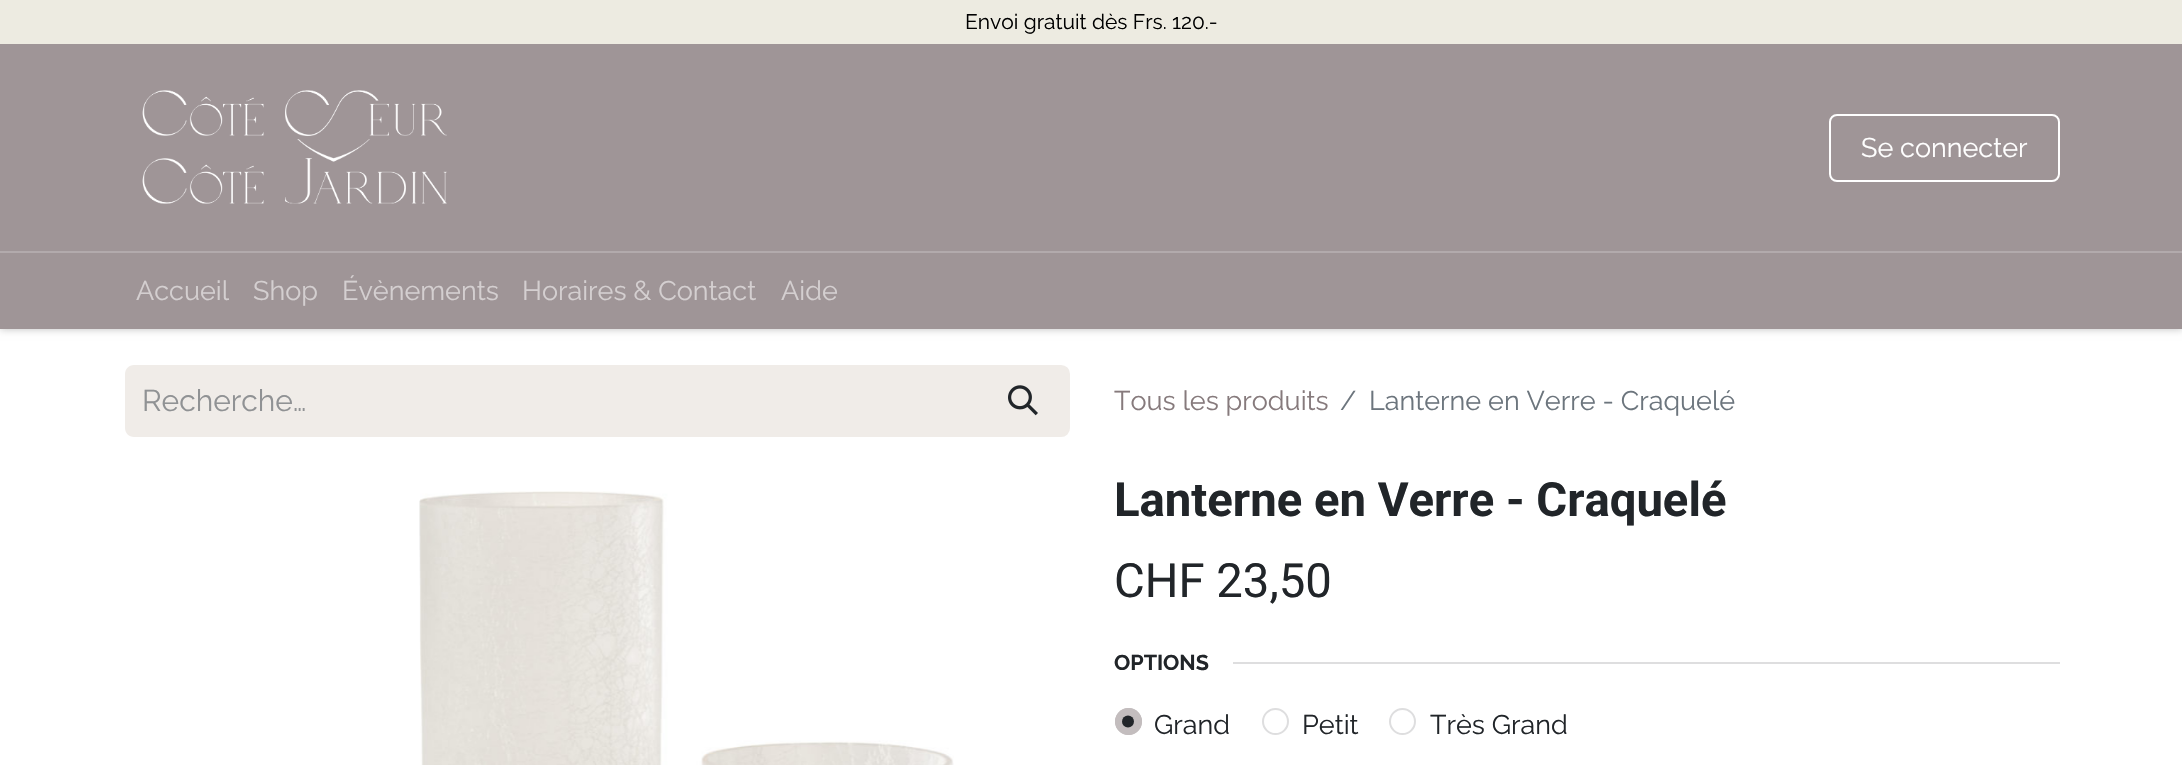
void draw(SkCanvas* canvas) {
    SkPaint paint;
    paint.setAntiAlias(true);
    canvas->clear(0xFFFFFFFF);
    paint.setColor(0x40000000);
    paint.setMaskFilter(SkMaskFilter::MakeBlur(kNormal_SkBlurStyle, 4));
    canvas->drawRect(SkRect::MakeXYWH(0, 0, 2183, 329), paint);
    paint.setMaskFilter(nullptr);
    paint.setColor(0xFF9F9597);
    canvas->drawRect(SkRect::MakeXYWH(0, 44, 2182, 285), paint);
    paint.setColor(0xFFEDEBE1);
    canvas->drawRect(SkRect::MakeXYWH(0, 0, 2182, 44), paint);
    SkFont font1(fontMgr->matchFamilyStyle("Raleway", SkFontStyle::Normal()), 21);
    font1.setSubpixel(true);
    paint.setColor(0xFF000000);
    canvas->drawString("Envoi gratuit dès Frs. 120.-", 965, 29, font1, paint);
    canvas->drawImageRect(SkImages::DeferredFromEncodedData(SkData::MakeFromFileName("img1.png")), SkRect::MakeXYWH(142, 90, 305, 114), SkSamplingOptions());
    paint.setStyle(SkPaint::kStroke_Style);
    paint.setStrokeWidth(2);
    paint.setColor(0xFFFFFFFF);
    canvas->drawRoundRect(SkRect::MakeXYWH(1830, 115, 229, 66), 7, 7, paint);
    SkFont font2(fontMgr->matchFamilyStyle("Raleway", SkFontStyle::Normal()), 27);
    font2.setSubpixel(true);
    paint.setStyle(SkPaint::kFill_Style);
    canvas->drawString("Se connecter", 1861, 157, font2, paint);
    paint.setColor(0xFFB2AAAC);
    canvas->drawRect(SkRect::MakeXYWH(0, 251, 2182, 2), paint);
    paint.setColor(0xFFD4CFD0);
    canvas->drawString("Accueil", 136, 300, font2, paint);
    canvas->drawString("Shop", 253, 300, font2, paint);
    canvas->drawString("Évènements", 342, 300, font2, paint);
    canvas->drawString("Horaires & Contact", 522, 300, font2, paint);
    canvas->drawString("Aide", 781, 300, font2, paint);
    paint.setColor(0xFFF0ECE8);
    canvas->drawPath(SkPathBuilder().moveTo(134, 365).lineTo(978, 365).lineTo(978, 437).lineTo(134, 437).cubicTo(129, 437, 125, 433, 125, 428).lineTo(125, 374).cubicTo(125, 369, 129, 365, 134, 365).close().detach(), paint);
    SkFont font3(fontMgr->matchFamilyStyle("Raleway", SkFontStyle::Normal()), 30);
    font3.setSubpixel(true);
    paint.setColor(0xFF909294);
    canvas->drawString("Recherche…", 142, 411, font3, paint);
    paint.setColor(0xFFF0ECE8);
    canvas->drawPath(SkPathBuilder().moveTo(978, 366).lineTo(1061, 366).cubicTo(1065.5f, 366, 1069, 369.5f, 1069, 374).lineTo(1069, 428).cubicTo(1069, 432.5f, 1065.5f, 436, 1061, 436).lineTo(978, 436).close().detach(), paint);
    paint.setStyle(SkPaint::kStroke_Style);
    canvas->drawPath(SkPathBuilder().moveTo(978, 366).lineTo(1061, 366).cubicTo(1065.5f, 366, 1069, 369.5f, 1069, 374).lineTo(1069, 428).cubicTo(1069, 432.5f, 1065.5f, 436, 1061, 436).lineTo(978, 436).close().detach(), paint);
    canvas->drawImageRect(SkImages::DeferredFromEncodedData(SkData::MakeFromFileName("img2.png")), SkRect::MakeXYWH(1008, 385, 30, 31), SkSamplingOptions());
    paint.setStyle(SkPaint::kFill_Style);
    paint.setColor(0xFF867A7C);
    canvas->drawString("Tous les produits", 1114, 410, font2, paint);
    paint.setColor(0xFF6C757D);
    canvas->drawString("/", 1340, 410, font2, paint);
    canvas->drawString("Lanterne en Verre - Craquelé", 1369, 410, font2, paint);
    canvas->drawImageRect(SkImages::DeferredFromEncodedData(SkData::MakeFromFileName("img3.png")), SkRect::MakeXYWH(419, 491, 535, 274), SkSamplingOptions());
    SkFont font4(fontMgr->matchFamilyStyle("Roboto", SkFontStyle::Bold()), 47.25f);
    font4.setSubpixel(true);
    paint.setColor(0xFF212529);
    canvas->drawString("Lanterne en Verre - Craquelé", 1114, 516, font4, paint);
    SkFont font5(fontMgr->matchFamilyStyle("Roboto", SkFontStyle::Normal()), 47.25f);
    font5.setSubpixel(true);
    canvas->drawString("CHF 23,50", 1114, 597, font5, paint);
    SkFont font6(fontMgr->matchFamilyStyle("Raleway", SkFontStyle::Bold()), 21.5f);
    font6.setSubpixel(true);
    canvas->drawString("OPTIONS", 1114, 670, font6, paint);
    paint.setColor(0xFFDEDEDF);
    canvas->drawRect(SkRect::MakeXYWH(1233, 662, 827, 2), paint);
    paint.setColor(0xFFC3BDBE);
    canvas->drawCircle(1128.5f, 721.5f, 13.5f, paint);
    paint.setColor(0xFF212529);
    canvas->drawCircle(1128, 721.5f, 6, paint);
    paint.setStyle(SkPaint::kStroke_Style);
    paint.setColor(0xFFC3BDBE);
    canvas->drawCircle(1128.5f, 721.5f, 12.5f, paint);
    paint.setStyle(SkPaint::kFill_Style);
    paint.setColor(0xFF212529);
    canvas->drawString("Grand", 1154, 734, font2, paint);
    paint.setStyle(SkPaint::kStroke_Style);
    paint.setColor(0xFFDEDEDF);
    canvas->drawCircle(1275.5f, 721.5f, 12.5f, paint);
    paint.setStyle(SkPaint::kFill_Style);
    paint.setColor(0xFF212529);
    canvas->drawString("Petit", 1302, 734, font2, paint);
    paint.setStyle(SkPaint::kStroke_Style);
    paint.setColor(0xFFDEDEDF);
    canvas->drawCircle(1402.5f, 721.5f, 12.5f, paint);
    paint.setStyle(SkPaint::kFill_Style);
    paint.setColor(0xFF212529);
    canvas->drawString("Très Grand", 1430, 734, font2, paint);
}
